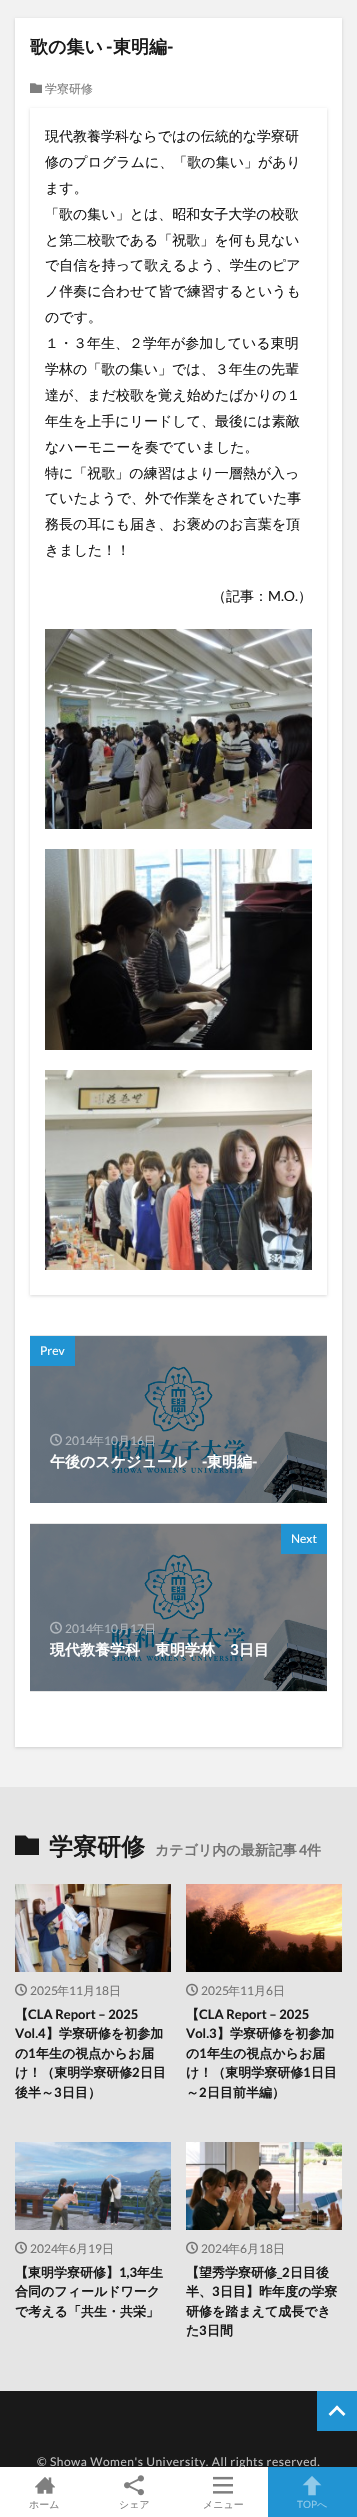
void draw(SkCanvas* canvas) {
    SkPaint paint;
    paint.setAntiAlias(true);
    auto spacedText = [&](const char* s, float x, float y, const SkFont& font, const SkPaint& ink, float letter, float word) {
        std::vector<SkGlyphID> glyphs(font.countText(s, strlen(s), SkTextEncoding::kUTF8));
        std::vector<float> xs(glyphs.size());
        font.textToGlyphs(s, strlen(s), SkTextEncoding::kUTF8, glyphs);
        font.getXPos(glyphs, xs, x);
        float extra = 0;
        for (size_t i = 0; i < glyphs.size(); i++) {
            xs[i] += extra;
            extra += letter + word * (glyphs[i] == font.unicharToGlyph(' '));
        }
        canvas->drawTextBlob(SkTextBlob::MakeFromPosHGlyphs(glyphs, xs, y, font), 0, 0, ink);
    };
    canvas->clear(0xFFF2F2F2);
    paint.setColor(0x26000000);
    paint.setMaskFilter(SkMaskFilter::MakeBlur(kNormal_SkBlurStyle, 1.5f));
    canvas->drawRect(SkRect::MakeXYWH(15, 19, 327, 1729), paint);
    paint.setMaskFilter(nullptr);
    paint.setColor(0xFFFFFFFF);
    canvas->drawRect(SkRect::MakeXYWH(15, 18, 327, 1729), paint);
    SkFont font1(fontMgr->matchFamilyStyle("WenQuanYi Zen Hei", SkFontStyle::Bold()), 18);
    font1.setSubpixel(true);
    paint.setColor(0xFF191919);
    canvas->drawString("歌の集い", 30, 53, font1, paint);
    SkFont font2(fontMgr->matchFamilyStyle("Lato", SkFontStyle::Bold()), 18);
    font2.setSubpixel(true);
    canvas->drawString("-", 106, 53, font2, paint);
    canvas->drawString("東明編", 113, 53, font1, paint);
    canvas->drawString("-", 167, 53, font2, paint);
    canvas->drawImageRect(SkImages::DeferredFromEncodedData(SkData::MakeFromFileName("img1.png")), SkRect::MakeXYWH(30, 83, 12, 10), SkSamplingOptions());
    SkFont font3(fontMgr->matchFamilyStyle("WenQuanYi Zen Hei", SkFontStyle(500, SkFontStyle::kNormal_Width, SkFontStyle::kUpright_Slant)), 12);
    font3.setSubpixel(true);
    paint.setColor(0xFF808080);
    canvas->drawString("学寮研修", 45, 93, font3, paint);
    canvas->save();
    canvas->clipPath(SkPathBuilder(SkPathFillType::kEvenOdd).moveTo(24, 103).lineTo(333, 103).lineTo(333, 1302).lineTo(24, 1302).close().moveTo(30, 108).lineTo(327, 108).lineTo(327, 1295).lineTo(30, 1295).close().detach(), true);
    paint.setColor(0x26000000);
    paint.setMaskFilter(SkMaskFilter::MakeBlur(kNormal_SkBlurStyle, 1.5f));
    canvas->drawRect(SkRect::MakeXYWH(30, 109, 297, 1187), paint);
    paint.setMaskFilter(nullptr);
    canvas->restore();
    SkFont font4(fontMgr->matchFamilyStyle("WenQuanYi Zen Hei", SkFontStyle(500, SkFontStyle::kNormal_Width, SkFontStyle::kUpright_Slant)), 14);
    font4.setSubpixel(true);
    paint.setColor(0xFF191919);
    canvas->drawString("現代教養学科ならではの伝統的な学寮研", 45, 141, font4, paint);
    canvas->drawString("修のプログラムに、「歌の集い」があり", 45, 167, font4, paint);
    canvas->drawString("ます。", 45, 193, font4, paint);
    canvas->drawString("「歌の集い」とは、昭和女子大学の校歌", 45, 219, font4, paint);
    canvas->drawString("と第二校歌である「祝歌」を何も見ない", 45, 245, font4, paint);
    canvas->drawString("で自信を持って歌えるよう、学生のピア", 45, 270, font4, paint);
    canvas->drawString("ノ伴奏に合わせて皆で練習するというも", 45, 296, font4, paint);
    canvas->drawString("のです。", 45, 322, font4, paint);
    canvas->drawString("１・３年生、２学年が参加している東明", 45, 348, font4, paint);
    canvas->drawString("学林の「歌の集い」では、３年生の先輩", 45, 374, font4, paint);
    canvas->drawString("達が、まだ校歌を覚え始めたばかりの１", 45, 400, font4, paint);
    canvas->drawString("年生を上手にリードして、最後には素敵", 45, 426, font4, paint);
    canvas->drawString("なハーモニーを奏でていました。", 45, 452, font4, paint);
    canvas->drawString("特に「祝歌」の練習はより一層熱が入っ", 45, 478, font4, paint);
    canvas->drawString("ていたようで、外で作業をされていた事", 45, 503, font4, paint);
    canvas->drawString("務長の耳にも届き、お褒めのお言葉を頂", 45, 529, font4, paint);
    canvas->drawString("きました！！", 45, 555, font4, paint);
    canvas->drawString("（記事：", 212, 601, font4, paint);
    SkFont font5(fontMgr->matchFamilyStyle("Lato", SkFontStyle::Normal()), 14);
    font5.setSubpixel(true);
    canvas->drawString("M.O.", 268, 601, font5, paint);
    canvas->drawString("）", 298, 601, font4, paint);
    canvas->drawImageRect(SkImages::DeferredFromEncodedData(SkData::MakeFromFileName("img2.png")), SkRect::MakeXYWH(45, 629, 267, 200), SkSamplingOptions());
    canvas->drawImageRect(SkImages::DeferredFromEncodedData(SkData::MakeFromFileName("img3.png")), SkRect::MakeXYWH(45, 849, 267, 201), SkSamplingOptions());
    canvas->drawImageRect(SkImages::DeferredFromEncodedData(SkData::MakeFromFileName("img4.png")), SkRect::MakeXYWH(45, 1070, 267, 200), SkSamplingOptions());
    paint.setColor(0xFFE6E6E6);
    canvas->drawRect(SkRect::MakeXYWH(30, 1335, 297, 1), paint);
    canvas->drawRect(SkRect::MakeXYWH(30, 1691, 297, 1), paint);
    canvas->drawRect(SkRect::MakeXYWH(30, 1523, 297, 1), paint);
    canvas->drawImageRect(SkImages::DeferredFromEncodedData(SkData::MakeFromFileName("img5.png")), SkRect::MakeXYWH(30, 1336, 297, 167), SkSamplingOptions());
    paint.setColor(0xFF2194D3);
    canvas->drawRect(SkRect::MakeXYWH(30, 1336, 45, 30), paint);
    SkFont font6(fontMgr->matchFamilyStyle("Lato", SkFontStyle::Normal()), 12);
    font6.setSubpixel(true);
    paint.setColor(0xFFFFFFFF);
    canvas->drawString("Prev", 40, 1355, font6, paint);
    canvas->drawImageRect(SkImages::DeferredFromEncodedData(SkData::MakeFromFileName("img6.png")), SkRect::MakeXYWH(50, 1433, 12, 13), SkSamplingOptions());
    paint.setColor(0xFFB2B8BE);
    canvas->drawString("2014", 65, 1445, font6, paint);
    canvas->drawString("年", 92, 1445, font3, paint);
    paint.setColor(0xFFAAB5BD);
    canvas->drawString("10", 104, 1445, font6, paint);
    paint.setColor(0xFFB2B8BE);
    canvas->drawString("月", 118, 1445, font3, paint);
    canvas->drawString("16", 130, 1445, font6, paint);
    canvas->drawString("日", 144, 1445, font3, paint);
    SkFont font7(fontMgr->matchFamilyStyle("WenQuanYi Zen Hei", SkFontStyle::Bold()), 15);
    font7.setSubpixel(true);
    paint.setColor(0xFFFFFFFF);
    canvas->drawString("午後のスケジュール", 50, 1467, font7, paint);
    SkFont font8(fontMgr->matchFamilyStyle("Lato", SkFontStyle::Bold()), 15);
    font8.setSubpixel(true);
    canvas->drawString("-", 202, 1467, font8, paint);
    canvas->drawString("東明編", 207, 1467, font7, paint);
    canvas->drawString("-", 252, 1467, font8, paint);
    canvas->drawImageRect(SkImages::DeferredFromEncodedData(SkData::MakeFromFileName("img5.png")), SkRect::MakeXYWH(30, 1524, 297, 167), SkSamplingOptions());
    paint.setColor(0xFF2194D3);
    canvas->drawRect(SkRect::MakeXYWH(281, 1524, 46, 30), paint);
    paint.setColor(0xFFFFFFFF);
    canvas->drawString("Next", 291, 1543, font6, paint);
    canvas->drawImageRect(SkImages::DeferredFromEncodedData(SkData::MakeFromFileName("img6.png")), SkRect::MakeXYWH(50, 1621, 12, 13), SkSamplingOptions());
    paint.setColor(0xFFB2B8BE);
    canvas->drawString("2014", 65, 1633, font6, paint);
    canvas->drawString("年", 92, 1633, font3, paint);
    paint.setColor(0xFFAAB5BD);
    canvas->drawString("10", 104, 1633, font6, paint);
    paint.setColor(0xFFB2B8BE);
    canvas->drawString("月", 118, 1633, font3, paint);
    canvas->drawString("17", 130, 1633, font6, paint);
    canvas->drawString("日", 144, 1633, font3, paint);
    paint.setColor(0xFFFFFFFF);
    canvas->drawString("現代教養学科　東明学林", 50, 1655, font7, paint);
    canvas->drawString("3", 230, 1655, font8, paint);
    canvas->drawString("日目", 239, 1655, font7, paint);
    paint.setColor(0xFFE5E5E5);
    canvas->drawRect(SkRect::MakeXYWH(0, 1787, 357, 604), paint);
    paint.setColor(0xFF191919);
    canvas->drawPath(SkPathBuilder().moveTo(25.5f, 1835.5f).lineTo(28.5f, 1838.5f).lineTo(39, 1838.5f).lineTo(39, 1855).lineTo(15, 1855).lineTo(15, 1835.5f).close().detach(), paint);
    SkFont font9(fontMgr->matchFamilyStyle("WenQuanYi Zen Hei", SkFontStyle::Bold()), 24);
    font9.setSubpixel(true);
    canvas->drawString("学寮研修", 49, 1855, font9, paint);
    SkFont font10(fontMgr->matchFamilyStyle("WenQuanYi Zen Hei", SkFontStyle::Bold()), 14);
    font10.setSubpixel(true);
    paint.setColor(0xFF737373);
    canvas->drawString("カテゴリ内の最新記事", 155, 1855, font10, paint);
    SkFont font11(fontMgr->matchFamilyStyle("Lato", SkFontStyle::Bold()), 14);
    font11.setSubpixel(true);
    canvas->drawString("4", 299, 1855, font11, paint);
    canvas->drawString("件", 307, 1855, font10, paint);
    canvas->drawImageRect(SkImages::DeferredFromEncodedData(SkData::MakeFromFileName("img7.png")), SkRect::MakeXYWH(15, 1884, 156, 88), SkSamplingOptions());
    canvas->drawImageRect(SkImages::DeferredFromEncodedData(SkData::MakeFromFileName("img8.png")), SkRect::MakeXYWH(15, 1983, 12, 13), SkSamplingOptions());
    canvas->drawString("2025", 30, 1995, font6, paint);
    canvas->drawString("年", 57, 1995, font3, paint);
    canvas->drawString("11", 69, 1995, font6, paint);
    canvas->drawString("月", 83, 1995, font3, paint);
    canvas->drawString("18", 95, 1995, font6, paint);
    canvas->drawString("日", 109, 1995, font3, paint);
    SkFont font12(fontMgr->matchFamilyStyle("WenQuanYi Zen Hei", SkFontStyle::Bold()), 13);
    font12.setSubpixel(true);
    paint.setColor(0xFF191919);
    canvas->drawString("【", 15, 2019, font12, paint);
    SkFont font13(fontMgr->matchFamilyStyle("Lato", SkFontStyle::Bold()), 13);
    font13.setSubpixel(true);
    canvas->drawString("CLA Report – 2025", 28, 2019, font13, paint);
    canvas->drawString("Vol.4", 15, 2038, font13, paint);
    canvas->drawString("】学寮研修を初参加", 46, 2038, font12, paint);
    canvas->drawString("の", 15, 2058, font12, paint);
    canvas->drawString("1", 28, 2058, font13, paint);
    canvas->drawString("年生の視点からお届", 36, 2058, font12, paint);
    canvas->drawString("け！（東明学寮研修", 15, 2077, font12, paint);
    canvas->drawString("2", 132, 2077, font13, paint);
    canvas->drawString("日目", 140, 2077, font12, paint);
    canvas->drawString("後半～", 15, 2097, font12, paint);
    canvas->drawString("3", 54, 2097, font13, paint);
    canvas->drawString("日目）", 62, 2097, font12, paint);
    canvas->drawImageRect(SkImages::DeferredFromEncodedData(SkData::MakeFromFileName("img9.png")), SkRect::MakeXYWH(186, 1884, 156, 88), SkSamplingOptions());
    canvas->drawImageRect(SkImages::DeferredFromEncodedData(SkData::MakeFromFileName("img8.png")), SkRect::MakeXYWH(186, 1983, 12, 13), SkSamplingOptions());
    paint.setColor(0xFF737373);
    canvas->drawString("2025", 201, 1995, font6, paint);
    canvas->drawString("年", 228, 1995, font3, paint);
    canvas->drawString("11", 240, 1995, font6, paint);
    canvas->drawString("月", 254, 1995, font3, paint);
    canvas->drawString("6", 266, 1995, font6, paint);
    canvas->drawString("日", 273, 1995, font3, paint);
    paint.setColor(0xFF191919);
    canvas->drawString("【", 186, 2019, font12, paint);
    canvas->drawString("CLA Report – 2025", 199, 2019, font13, paint);
    canvas->drawString("Vol.3", 186, 2038, font13, paint);
    canvas->drawString("】学寮研修を初参加", 217, 2038, font12, paint);
    canvas->drawString("の", 186, 2058, font12, paint);
    canvas->drawString("1", 199, 2058, font13, paint);
    canvas->drawString("年生の視点からお届", 207, 2058, font12, paint);
    canvas->drawString("け！（東明学寮研修", 186, 2077, font12, paint);
    canvas->drawString("1", 303, 2077, font13, paint);
    canvas->drawString("日目", 311, 2077, font12, paint);
    canvas->drawString("～", 186, 2097, font12, paint);
    canvas->drawString("2", 199, 2097, font13, paint);
    canvas->drawString("日目前半編）", 207, 2097, font12, paint);
    canvas->drawImageRect(SkImages::DeferredFromEncodedData(SkData::MakeFromFileName("img10.png")), SkRect::MakeXYWH(15, 2142, 156, 88), SkSamplingOptions());
    canvas->drawImageRect(SkImages::DeferredFromEncodedData(SkData::MakeFromFileName("img8.png")), SkRect::MakeXYWH(15, 2241, 12, 13), SkSamplingOptions());
    paint.setColor(0xFF737373);
    canvas->drawString("2024", 30, 2253, font6, paint);
    canvas->drawString("年", 57, 2253, font3, paint);
    canvas->drawString("6", 69, 2253, font6, paint);
    canvas->drawString("月", 76, 2253, font3, paint);
    canvas->drawString("19", 88, 2253, font6, paint);
    canvas->drawString("日", 102, 2253, font3, paint);
    paint.setColor(0xFF191919);
    canvas->drawString("【東明学寮研修】", 15, 2277, font12, paint);
    canvas->drawString("1,3", 119, 2277, font13, paint);
    canvas->drawString("年生", 137, 2277, font12, paint);
    canvas->drawString("合同のフィールドワーク", 15, 2296, font12, paint);
    canvas->drawString("で考える「共生・共栄」", 15, 2316, font12, paint);
    canvas->drawImageRect(SkImages::DeferredFromEncodedData(SkData::MakeFromFileName("img11.png")), SkRect::MakeXYWH(186, 2142, 156, 88), SkSamplingOptions());
    canvas->drawImageRect(SkImages::DeferredFromEncodedData(SkData::MakeFromFileName("img8.png")), SkRect::MakeXYWH(186, 2241, 12, 13), SkSamplingOptions());
    paint.setColor(0xFF737373);
    canvas->drawString("2024", 201, 2253, font6, paint);
    canvas->drawString("年", 228, 2253, font3, paint);
    canvas->drawString("6", 240, 2253, font6, paint);
    canvas->drawString("月", 247, 2253, font3, paint);
    canvas->drawString("18", 259, 2253, font6, paint);
    canvas->drawString("日", 273, 2253, font3, paint);
    paint.setColor(0xFF191919);
    canvas->drawString("【望秀学寮研修", 186, 2277, font12, paint);
    canvas->drawString("_2", 277, 2277, font13, paint);
    canvas->drawString("日目後", 290, 2277, font12, paint);
    canvas->drawString("半、", 186, 2296, font12, paint);
    canvas->drawString("3", 212, 2296, font13, paint);
    canvas->drawString("日目】昨年度の学寮", 220, 2296, font12, paint);
    canvas->drawString("研修を踏まえて成長でき", 186, 2316, font12, paint);
    canvas->drawString("た", 186, 2335, font12, paint);
    canvas->drawString("3", 199, 2335, font13, paint);
    canvas->drawString("日間", 207, 2335, font12, paint);
    canvas->drawRect(SkRect::MakeXYWH(0, 2391, 357, 76), paint);
    paint.setColor(0xFF2194D3);
    canvas->drawRect(SkRect::MakeXYWH(317, 2391, 40, 40), paint);
    paint.setColor(0xFFFFFFFF);
    canvas->drawPath(SkPathBuilder().moveTo(328.5f, 2414).lineTo(337, 2405.5f).lineTo(339, 2407.5f).lineTo(330.5f, 2416).close().detach(), paint);
    canvas->drawPath(SkPathBuilder().moveTo(335, 2407.5f).lineTo(337, 2405.5f).lineTo(345.5f, 2414).lineTo(343.5f, 2416).close().detach(), paint);
    paint.setColor(0xFFBFBFBF);
    spacedText("© Showa Women's University. All rights reserved.", 37, 2466, font6, paint, 0.5f, 0);
    paint.setColor(0xFFFFFFFF);
    canvas->drawRect(SkRect::MakeXYWH(0, 2467, 268, 50), paint);
    canvas->drawImageRect(SkImages::DeferredFromEncodedData(SkData::MakeFromFileName("img12.png")), SkRect::MakeXYWH(35, 2477, 20, 17), SkSamplingOptions());
    SkFont font14(fontMgr->matchFamilyStyle("WenQuanYi Zen Hei", SkFontStyle(500, SkFontStyle::kNormal_Width, SkFontStyle::kUpright_Slant)), 10);
    font14.setSubpixel(true);
    paint.setColor(0xFF808080);
    canvas->drawString("ホーム", 29, 2508, font14, paint);
    canvas->drawImageRect(SkImages::DeferredFromEncodedData(SkData::MakeFromFileName("img13.png")), SkRect::MakeXYWH(124, 2475, 20, 21), SkSamplingOptions());
    canvas->drawString("シェア", 119, 2508, font14, paint);
    canvas->drawImageRect(SkImages::DeferredFromEncodedData(SkData::MakeFromFileName("img14.png")), SkRect::MakeXYWH(213, 2476, 20, 18), SkSamplingOptions());
    canvas->drawString("メニュー", 203, 2508, font14, paint);
    paint.setColor(0xFF2194D3);
    canvas->drawRect(SkRect::MakeXYWH(268, 2467, 89, 50), paint);
    canvas->drawImageRect(SkImages::DeferredFromEncodedData(SkData::MakeFromFileName("img15.png")), SkRect::MakeXYWH(302, 2476, 20, 20), SkSamplingOptions());
    SkFont font15(fontMgr->matchFamilyStyle("Lato", SkFontStyle::Normal()), 10);
    font15.setSubpixel(true);
    paint.setColor(0xFF90CAE9);
    canvas->drawString("TOP", 297, 2508, font15, paint);
    canvas->drawString("へ", 317, 2508, font14, paint);
}
